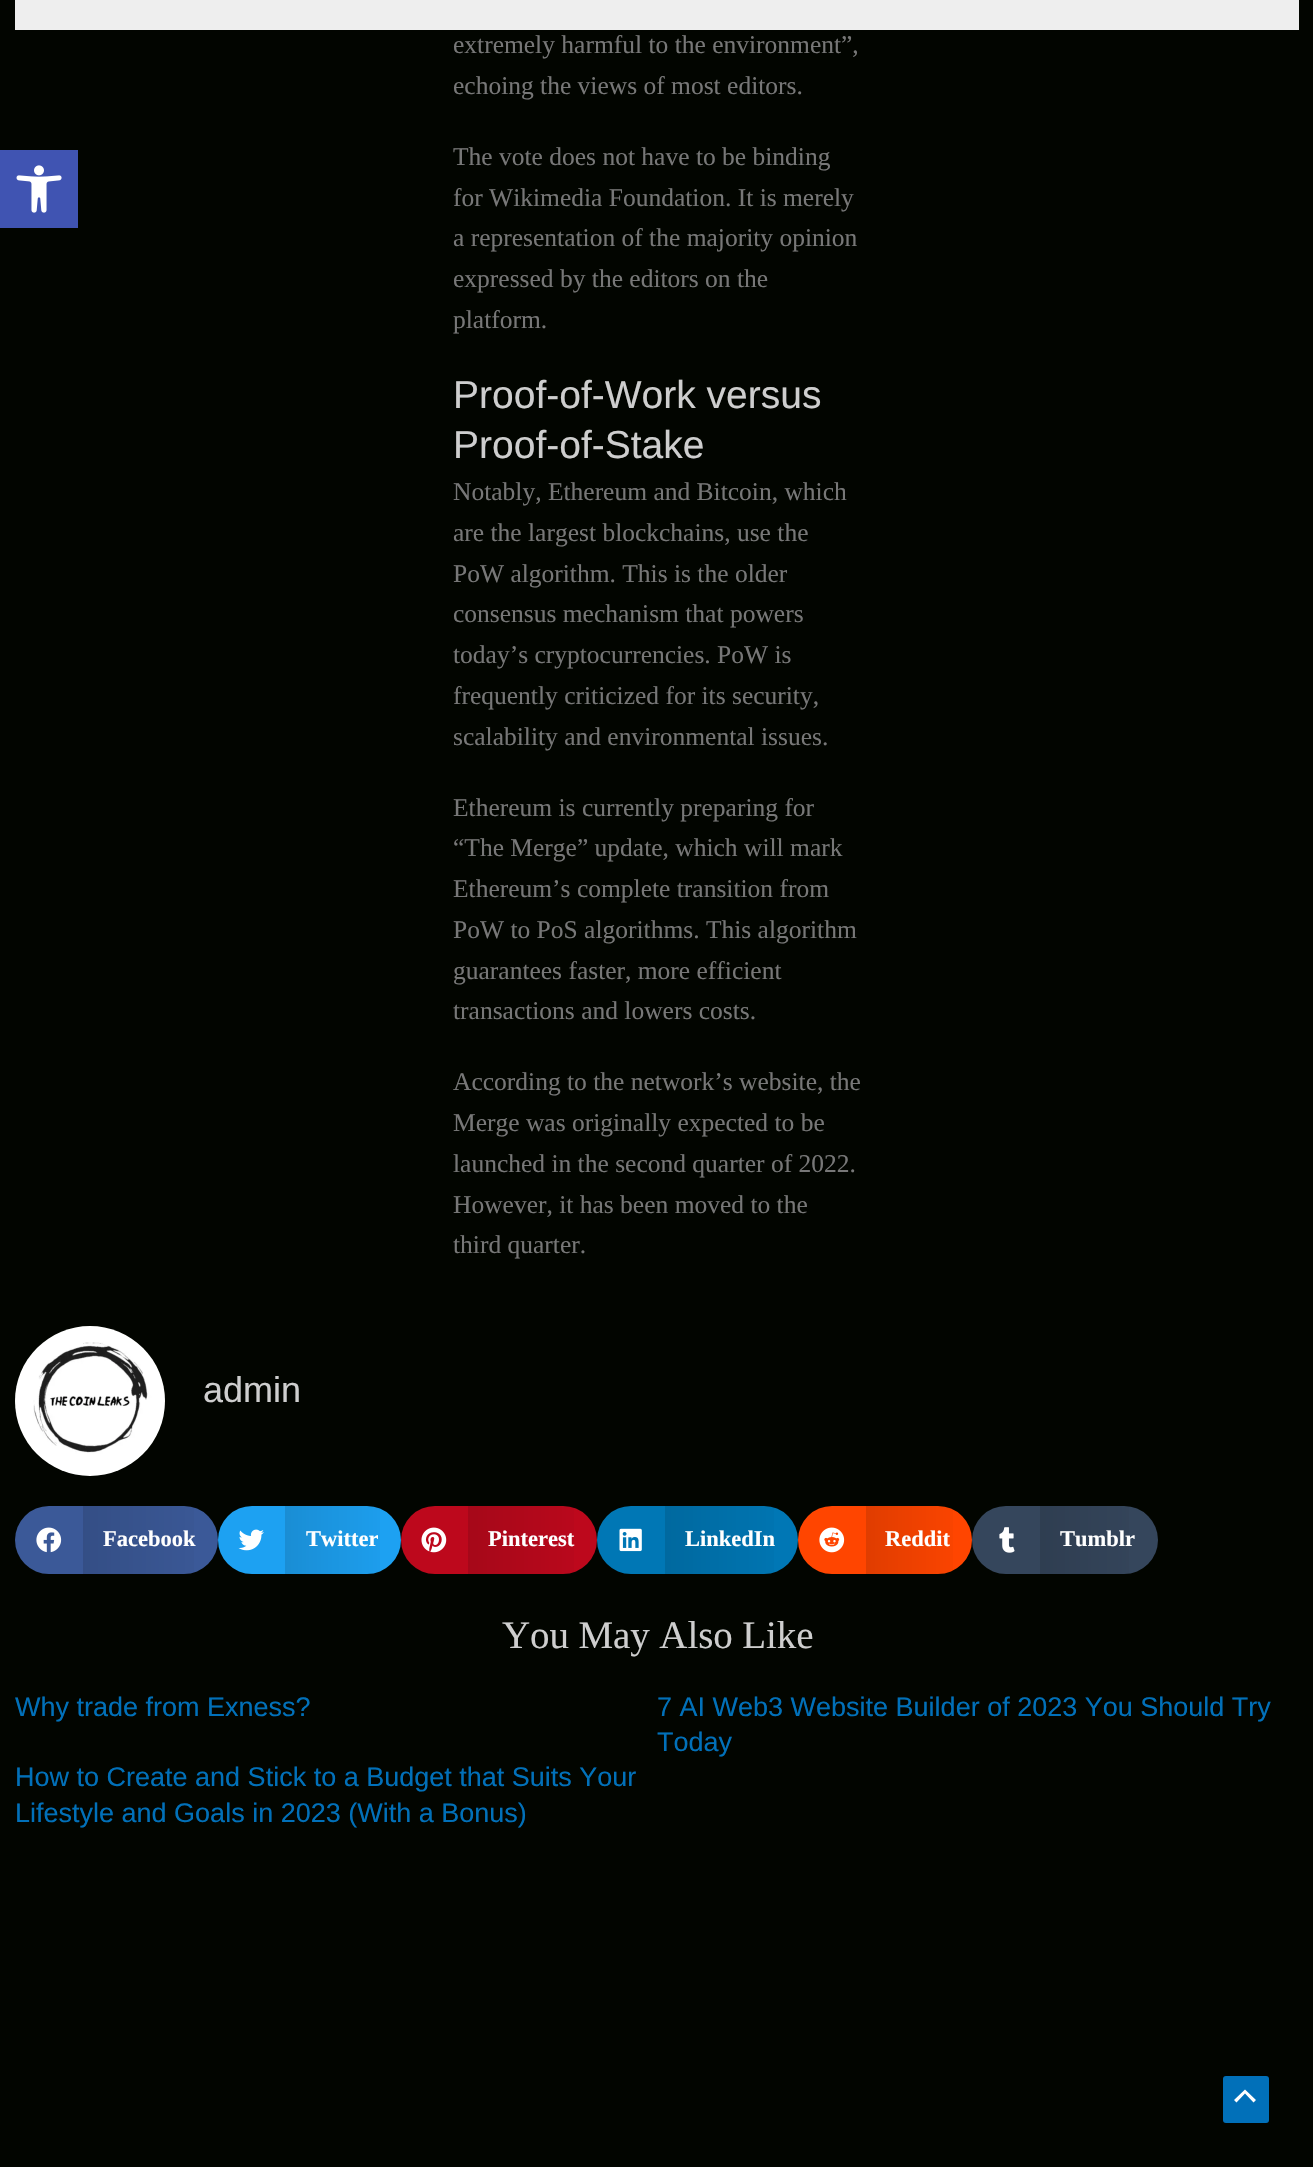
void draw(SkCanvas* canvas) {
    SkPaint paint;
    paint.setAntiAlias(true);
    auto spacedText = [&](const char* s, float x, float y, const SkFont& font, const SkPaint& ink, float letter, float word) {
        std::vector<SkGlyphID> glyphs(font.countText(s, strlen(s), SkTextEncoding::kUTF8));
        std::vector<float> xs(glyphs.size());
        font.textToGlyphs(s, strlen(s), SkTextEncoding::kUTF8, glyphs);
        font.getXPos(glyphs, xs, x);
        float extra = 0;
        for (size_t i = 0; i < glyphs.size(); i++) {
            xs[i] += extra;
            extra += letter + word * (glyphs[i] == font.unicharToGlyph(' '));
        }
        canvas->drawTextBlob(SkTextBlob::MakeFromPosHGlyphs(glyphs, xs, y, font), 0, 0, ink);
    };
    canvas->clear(0xFF020500);
    paint.setColor(0xFFEEEEEE);
    canvas->drawRect(SkRect::MakeXYWH(15, 0, 1284, 30), paint);
    SkFont font1(fontMgr->matchFamilyStyle("Liberation Serif", SkFontStyle::Normal()), 25.5f);
    font1.setSubpixel(true);
    paint.setColor(0xFF777777);
    canvas->drawString("extremely harmful to the environment”,", 453, 53, font1, paint);
    canvas->drawString("echoing the views of most editors.", 453, 94, font1, paint);
    canvas->drawString("The vote does not have to be binding", 453, 165, font1, paint);
    canvas->drawString("for Wikimedia Foundation. It is merely", 453, 206, font1, paint);
    canvas->drawString("a representation of the majority opinion", 453, 246, font1, paint);
    canvas->drawString("expressed by the editors on the", 453, 287, font1, paint);
    canvas->drawString("platform.", 453, 328, font1, paint);
    SkFont font2(fontMgr->matchFamilyStyle("Liberation Sans", SkFontStyle::Normal()), 39);
    font2.setSubpixel(true);
    paint.setColor(0xFFCECECE);
    canvas->drawString("Proof-of-Work versus", 453, 408, font2, paint);
    canvas->drawString("Proof-of-Stake", 453, 458, font2, paint);
    paint.setColor(0xFF777777);
    canvas->drawString("Notably, Ethereum and Bitcoin, which", 453, 500, font1, paint);
    canvas->drawString("are the largest blockchains, use the", 453, 541, font1, paint);
    canvas->drawString("PoW algorithm. This is the older", 453, 582, font1, paint);
    canvas->drawString("consensus mechanism that powers", 453, 622, font1, paint);
    canvas->drawString("today’s cryptocurrencies. PoW is", 453, 663, font1, paint);
    canvas->drawString("frequently criticized for its security,", 453, 704, font1, paint);
    canvas->drawString("scalability and environmental issues.", 453, 745, font1, paint);
    canvas->drawString("Ethereum is currently preparing for", 453, 816, font1, paint);
    canvas->drawString("“The Merge” update, which will mark", 453, 856, font1, paint);
    canvas->drawString("Ethereum’s complete transition from", 453, 897, font1, paint);
    canvas->drawString("PoW to PoS algorithms. This algorithm", 453, 938, font1, paint);
    canvas->drawString("guarantees faster, more efficient", 453, 979, font1, paint);
    canvas->drawString("transactions and lowers costs.", 453, 1019, font1, paint);
    canvas->drawString("According to the network’s website, the", 453, 1090, font1, paint);
    canvas->drawString("Merge was originally expected to be", 453, 1131, font1, paint);
    canvas->drawString("launched in the second quarter of 2022.", 453, 1172, font1, paint);
    canvas->drawString("However, it has been moved to the", 453, 1213, font1, paint);
    canvas->drawString("third quarter.", 453, 1253, font1, paint);
    canvas->drawImageRect(SkImages::DeferredFromEncodedData(SkData::MakeFromFileName("img1.png")), SkRect::MakeXYWH(15, 1326, 150, 150), SkSamplingOptions());
    SkFont font3(fontMgr->matchFamilyStyle("Liberation Sans", SkFontStyle::Normal()), 36);
    font3.setSubpixel(true);
    paint.setColor(0xFFCECECE);
    canvas->drawString("admin", 203, 1402, font3, paint);
    paint.setColor(0xFF3B5998);
    canvas->drawRoundRect(SkRect::MakeXYWH(15, 1506, 203, 68), 34, 34, paint);
    canvas->drawImageRect(SkImages::DeferredFromEncodedData(SkData::MakeFromFileName("img2.png")), SkRect::MakeXYWH(36, 1527, 26, 26), SkSamplingOptions());
    {
        const SkColor colors[] = {0x1F000000, 0x00000000};
        const float stops[] = {0, 1};
        const SkPoint ends[] = {{83, 1540}, {218, 1540}};
        paint.setShader(SkGradientShader::MakeLinear(ends, colors, stops, 2, SkTileMode::kClamp));
        paint.setAlpha(255);
    }
    canvas->drawRect(SkRect::MakeXYWH(83, 1506, 111, 68), paint);
    SkFont font4(fontMgr->matchFamilyStyle("Liberation Serif", SkFontStyle::Bold()), 22.5f);
    font4.setSubpixel(true);
    paint.setShader(nullptr);
    paint.setColor(0xFFFFFFFF);
    canvas->drawString("Facebook", 103, 1546, font4, paint);
    paint.setColor(0xFF1DA1F2);
    canvas->drawRoundRect(SkRect::MakeXYWH(218, 1506, 183, 68), 34, 34, paint);
    canvas->drawImageRect(SkImages::DeferredFromEncodedData(SkData::MakeFromFileName("img3.png")), SkRect::MakeXYWH(238, 1529, 26, 22), SkSamplingOptions());
    {
        const SkColor colors[] = {0x1F000000, 0x00000000};
        const float stops[] = {0, 1};
        const SkPoint ends[] = {{285, 1540}, {401, 1540}};
        paint.setShader(SkGradientShader::MakeLinear(ends, colors, stops, 2, SkTileMode::kClamp));
        paint.setAlpha(255);
    }
    canvas->drawRect(SkRect::MakeXYWH(285, 1506, 95, 68), paint);
    paint.setShader(nullptr);
    paint.setColor(0xFFFFFFFF);
    canvas->drawString("Twitter", 306, 1546, font4, paint);
    paint.setColor(0xFFBD081C);
    canvas->drawRoundRect(SkRect::MakeXYWH(401, 1506, 196, 68), 34, 34, paint);
    canvas->drawImageRect(SkImages::DeferredFromEncodedData(SkData::MakeFromFileName("img4.png")), SkRect::MakeXYWH(421, 1527, 26, 26), SkSamplingOptions());
    {
        const SkColor colors[] = {0x1F000000, 0x00000000};
        const float stops[] = {0, 1};
        const SkPoint ends[] = {{468, 1540}, {597, 1540}};
        paint.setShader(SkGradientShader::MakeLinear(ends, colors, stops, 2, SkTileMode::kClamp));
        paint.setAlpha(255);
    }
    canvas->drawRect(SkRect::MakeXYWH(468, 1506, 106, 68), paint);
    paint.setShader(nullptr);
    paint.setColor(0xFFFFFFFF);
    canvas->drawString("Pinterest", 488, 1546, font4, paint);
    paint.setColor(0xFF0077B5);
    canvas->drawRoundRect(SkRect::MakeXYWH(597, 1506, 201, 68), 34, 34, paint);
    canvas->drawImageRect(SkImages::DeferredFromEncodedData(SkData::MakeFromFileName("img5.png")), SkRect::MakeXYWH(619, 1528, 23, 24), SkSamplingOptions());
    {
        const SkColor colors[] = {0x1F000000, 0x00000000};
        const float stops[] = {0, 1};
        const SkPoint ends[] = {{665, 1540}, {798, 1540}};
        paint.setShader(SkGradientShader::MakeLinear(ends, colors, stops, 2, SkTileMode::kClamp));
        paint.setAlpha(255);
    }
    canvas->drawRect(SkRect::MakeXYWH(665, 1506, 109, 68), paint);
    paint.setShader(nullptr);
    paint.setColor(0xFFFFFFFF);
    canvas->drawString("LinkedIn", 685, 1546, font4, paint);
    paint.setColor(0xFFFF4500);
    canvas->drawRoundRect(SkRect::MakeXYWH(798, 1506, 174, 68), 34, 34, paint);
    canvas->drawImageRect(SkImages::DeferredFromEncodedData(SkData::MakeFromFileName("img6.png")), SkRect::MakeXYWH(819, 1527, 26, 26), SkSamplingOptions());
    {
        const SkColor colors[] = {0x1F000000, 0x00000000};
        const float stops[] = {0, 1};
        const SkPoint ends[] = {{866, 1540}, {972, 1540}};
        paint.setShader(SkGradientShader::MakeLinear(ends, colors, stops, 2, SkTileMode::kClamp));
        paint.setAlpha(255);
    }
    canvas->drawRect(SkRect::MakeXYWH(866, 1506, 87, 68), paint);
    paint.setShader(nullptr);
    paint.setColor(0xFFFFFFFF);
    canvas->drawString("Reddit", 885, 1546, font4, paint);
    paint.setColor(0xFF35465C);
    canvas->drawRoundRect(SkRect::MakeXYWH(972, 1506, 186, 68), 34, 34, paint);
    canvas->drawImageRect(SkImages::DeferredFromEncodedData(SkData::MakeFromFileName("img7.png")), SkRect::MakeXYWH(999, 1527, 16, 26), SkSamplingOptions());
    {
        const SkColor colors[] = {0x1F000000, 0x00000000};
        const float stops[] = {0, 1};
        const SkPoint ends[] = {{1040, 1540}, {1158, 1540}};
        paint.setShader(SkGradientShader::MakeLinear(ends, colors, stops, 2, SkTileMode::kClamp));
        paint.setAlpha(255);
    }
    canvas->drawRect(SkRect::MakeXYWH(1040, 1506, 89, 68), paint);
    paint.setShader(nullptr);
    paint.setColor(0xFFFFFFFF);
    canvas->drawString("Tumblr", 1060, 1546, font4, paint);
    SkFont font5(fontMgr->matchFamilyStyle("Liberation Serif", SkFontStyle::Normal()), 39);
    font5.setSubpixel(true);
    paint.setColor(0xFFCECECE);
    spacedText("You May Also Like", 502, 1648, font5, paint, -0.1f, 0);
    SkFont font6(fontMgr->matchFamilyStyle("Liberation Sans", SkFontStyle::Normal()), 27);
    font6.setSubpixel(true);
    paint.setColor(0xFF0170B9);
    canvas->drawString("Why trade from Exness?", 15, 1716, font6, paint);
    canvas->drawString("7 AI Web3 Website Builder of 2023 You Should Try", 657, 1716, font6, paint);
    canvas->drawString("Today", 657, 1751, font6, paint);
    canvas->drawString("How to Create and Stick to a Budget that Suits Your", 15, 1786, font6, paint);
    canvas->drawString("Lifestyle and Goals in 2023 (With a Bonus)", 15, 1822, font6, paint);
    paint.setColor(0xFF4054B2);
    canvas->drawRect(SkRect::MakeXYWH(0, 150, 78, 78), paint);
    canvas->drawImageRect(SkImages::DeferredFromEncodedData(SkData::MakeFromFileName("img8.png")), SkRect::MakeXYWH(16, 165, 46, 48), SkSamplingOptions());
    paint.setColor(0xFF0170B9);
    canvas->drawRoundRect(SkRect::MakeXYWH(1223, 2076, 46, 47), 3, 3, paint);
    paint.setColor(0xFFFFFFFF);
    canvas->drawPath(SkPathBuilder().moveTo(1256, 2100).lineTo(1245, 2089.5f).lineTo(1234, 2100).lineTo(1236.5f, 2102.5f).lineTo(1245, 2093.5f).lineTo(1253.5f, 2102.5f).close().detach(), paint);
}
